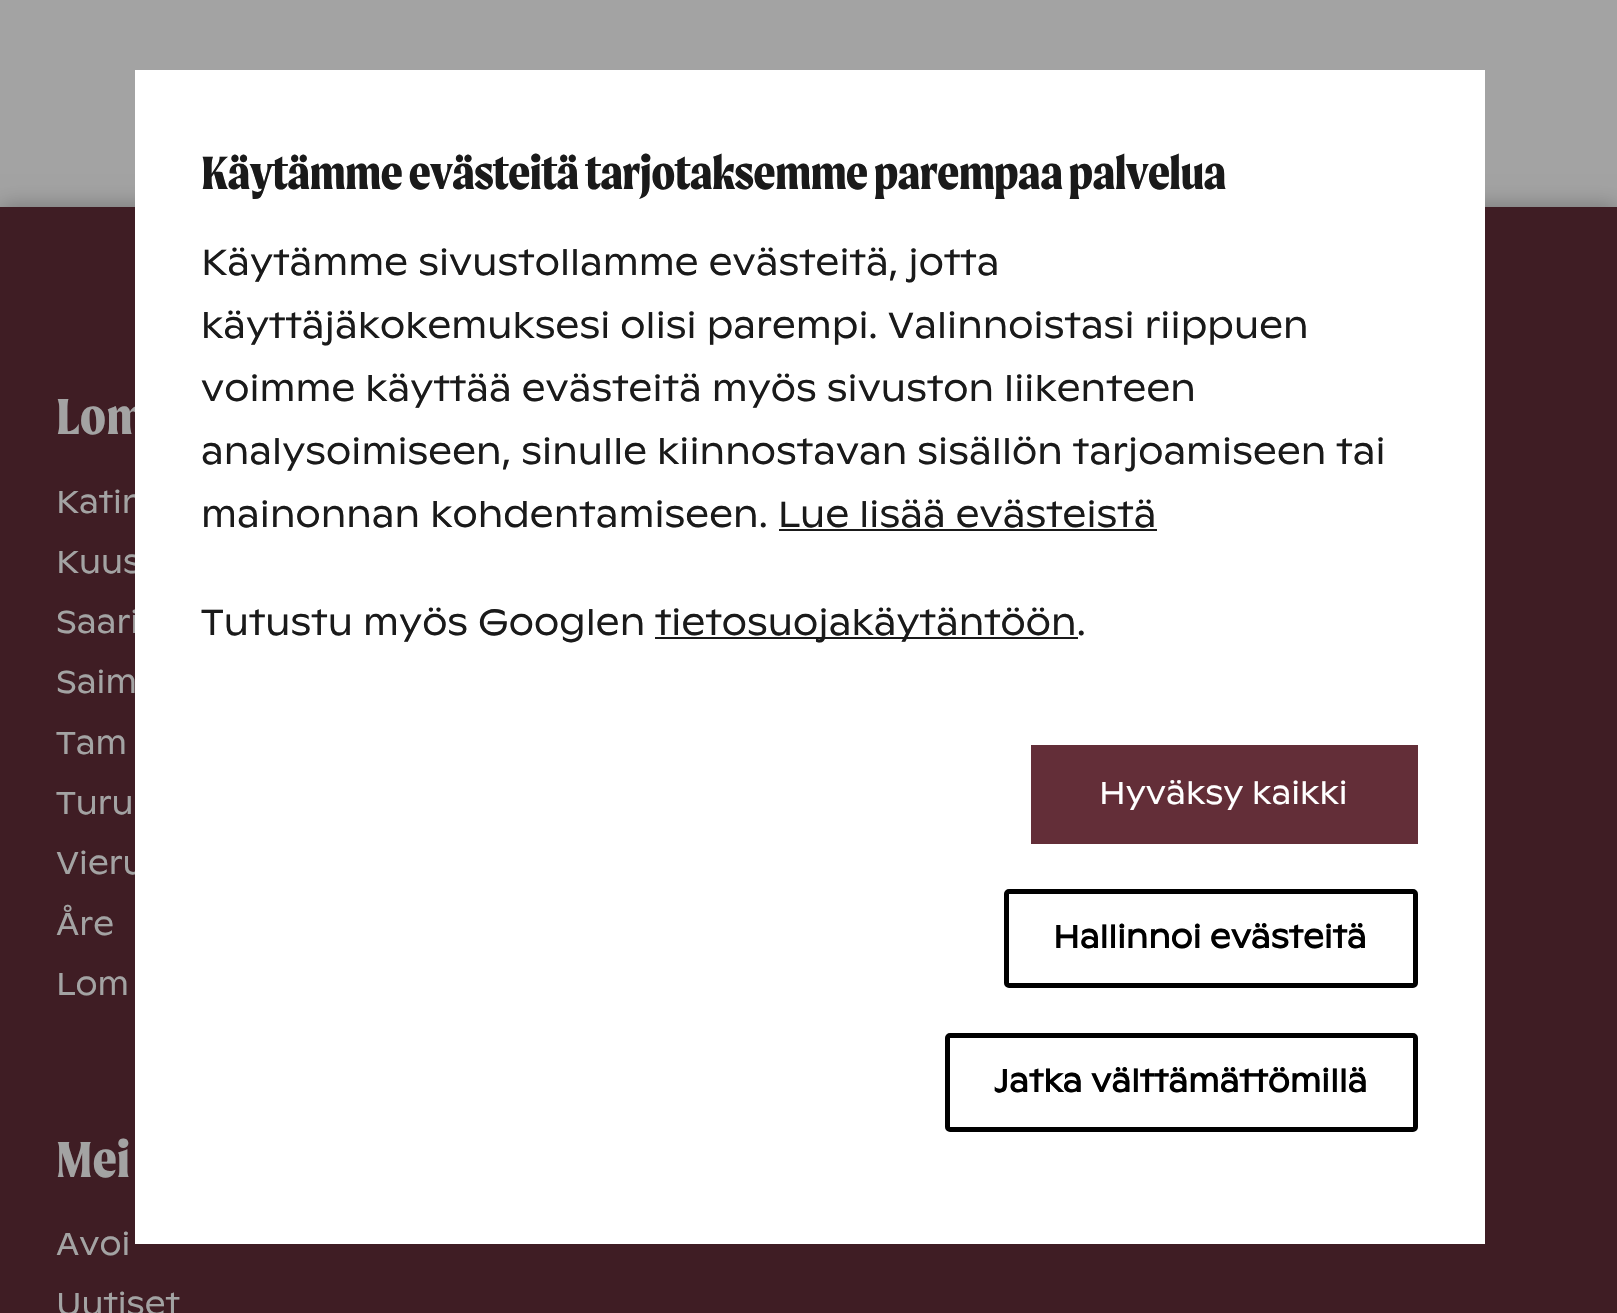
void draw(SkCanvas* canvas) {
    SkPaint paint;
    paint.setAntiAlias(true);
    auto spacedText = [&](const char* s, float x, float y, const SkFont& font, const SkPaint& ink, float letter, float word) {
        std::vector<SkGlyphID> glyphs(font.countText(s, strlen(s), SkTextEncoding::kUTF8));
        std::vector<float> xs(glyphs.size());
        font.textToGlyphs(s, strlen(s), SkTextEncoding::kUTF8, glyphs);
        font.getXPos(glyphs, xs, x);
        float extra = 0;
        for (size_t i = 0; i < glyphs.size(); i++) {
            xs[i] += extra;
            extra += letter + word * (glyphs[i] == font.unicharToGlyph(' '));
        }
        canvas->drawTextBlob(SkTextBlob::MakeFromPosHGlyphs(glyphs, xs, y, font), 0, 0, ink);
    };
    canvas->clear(0xFFA3A3A3);
    paint.setColor(0x4D000000);
    paint.setMaskFilter(SkMaskFilter::MakeBlur(kNormal_SkBlurStyle, 11));
    canvas->drawRect(SkRect::MakeXYWH(0, 207, 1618, 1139), paint);
    paint.setMaskFilter(nullptr);
    paint.setColor(0xFF3F1D24);
    canvas->drawRect(SkRect::MakeXYWH(0, 207, 1617, 1106), paint);
    SkFont font1(fontMgr->matchFamilyStyle("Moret", SkFontStyle::Bold()), 54);
    font1.setSubpixel(true);
    paint.setColor(0xFFA3A3A3);
    canvas->drawString("Lom", 56, 434, font1, paint);
    SkFont font2(fontMgr->matchFamilyStyle("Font", SkFontStyle::Normal()), 31.5f);
    font2.setSubpixel(true);
    canvas->drawString("Katin", 56, 513, font2, paint);
    canvas->drawString("Kuus", 56, 573, font2, paint);
    canvas->drawString("Saari", 56, 633, font2, paint);
    canvas->drawString("Saim", 56, 693, font2, paint);
    canvas->drawString("Tam", 56, 754, font2, paint);
    canvas->drawString("Turu", 56, 814, font2, paint);
    canvas->drawString("Vieru", 56, 874, font2, paint);
    canvas->drawString("Åre", 56, 935, font2, paint);
    canvas->drawString("Lom", 56, 995, font2, paint);
    canvas->drawString("Mei", 56, 1177, font1, paint);
    canvas->drawString("Avoi", 56, 1255, font2, paint);
    canvas->drawString("Uutiset", 56, 1315, font2, paint);
    paint.setColor(0xFFFFFFFF);
    canvas->drawRect(SkRect::MakeXYWH(135, 70, 1350, 1174), paint);
    SkFont font3(fontMgr->matchFamilyStyle("Moret", SkFontStyle::Bold()), 49.5f);
    font3.setSubpixel(true);
    paint.setColor(0xFF1A1A1A);
    spacedText("Käytämme evästeitä tarjotaksemme parempaa palvelua", 201, 189, font3, paint, -0.7f, 0);
    SkFont font4(fontMgr->matchFamilyStyle("Font", SkFontStyle::Normal()), 36);
    font4.setSubpixel(true);
    spacedText("Käytämme sivustollamme evästeitä, jotta", 201, 275, font4, paint, 0.1f, 0);
    spacedText("käyttäjäkokemuksesi olisi parempi. Valinnoistasi riippuen", 201, 338, font4, paint, 0.1f, 0);
    spacedText("voimme käyttää evästeitä myös sivuston liikenteen", 201, 401, font4, paint, 0.1f, 0);
    spacedText("analysoimiseen, sinulle kiinnostavan sisällön tarjoamiseen tai", 201, 464, font4, paint, 0.1f, 0);
    spacedText("mainonnan kohdentamiseen. Lue lisää evästeistä", 201, 527, font4, paint, 0.1f, 0);
    canvas->drawRect(SkRect::MakeXYWH(779, 529, 378, 2), paint);
    spacedText("Tutustu myös Googlen", 201, 635, font4, paint, 0.1f, 0);
    canvas->drawRect(SkRect::MakeXYWH(655, 637, 423, 2), paint);
    spacedText("tietosuojakäytäntöön.", 655, 635, font4, paint, 0.1f, 0);
    paint.setColor(0xFF632E38);
    canvas->drawRect(SkRect::MakeXYWH(1031, 745, 387, 99), paint);
    paint.setColor(0xFFFFFFFF);
    canvas->drawString("Hyväksy kaikki", 1099, 804, font2, paint);
    paint.setStyle(SkPaint::kStroke_Style);
    paint.setStrokeWidth(5);
    paint.setColor(0xFF000000);
    canvas->drawRoundRect(SkRect::MakeXYWH(1006.5f, 891.5f, 409, 94), 2.5f, 2.5f, paint);
    SkFont font5(fontMgr->matchFamilyStyle("Font", SkFontStyle::Bold()), 31.5f);
    font5.setSubpixel(true);
    paint.setStyle(SkPaint::kFill_Style);
    canvas->drawString("Hallinnoi evästeitä", 1053, 948, font5, paint);
    paint.setStyle(SkPaint::kStroke_Style);
    canvas->drawRoundRect(SkRect::MakeXYWH(947.5f, 1035.5f, 468, 94), 2.5f, 2.5f, paint);
    paint.setStyle(SkPaint::kFill_Style);
    canvas->drawString("Jatka välttämättömillä", 994, 1092, font5, paint);
}
